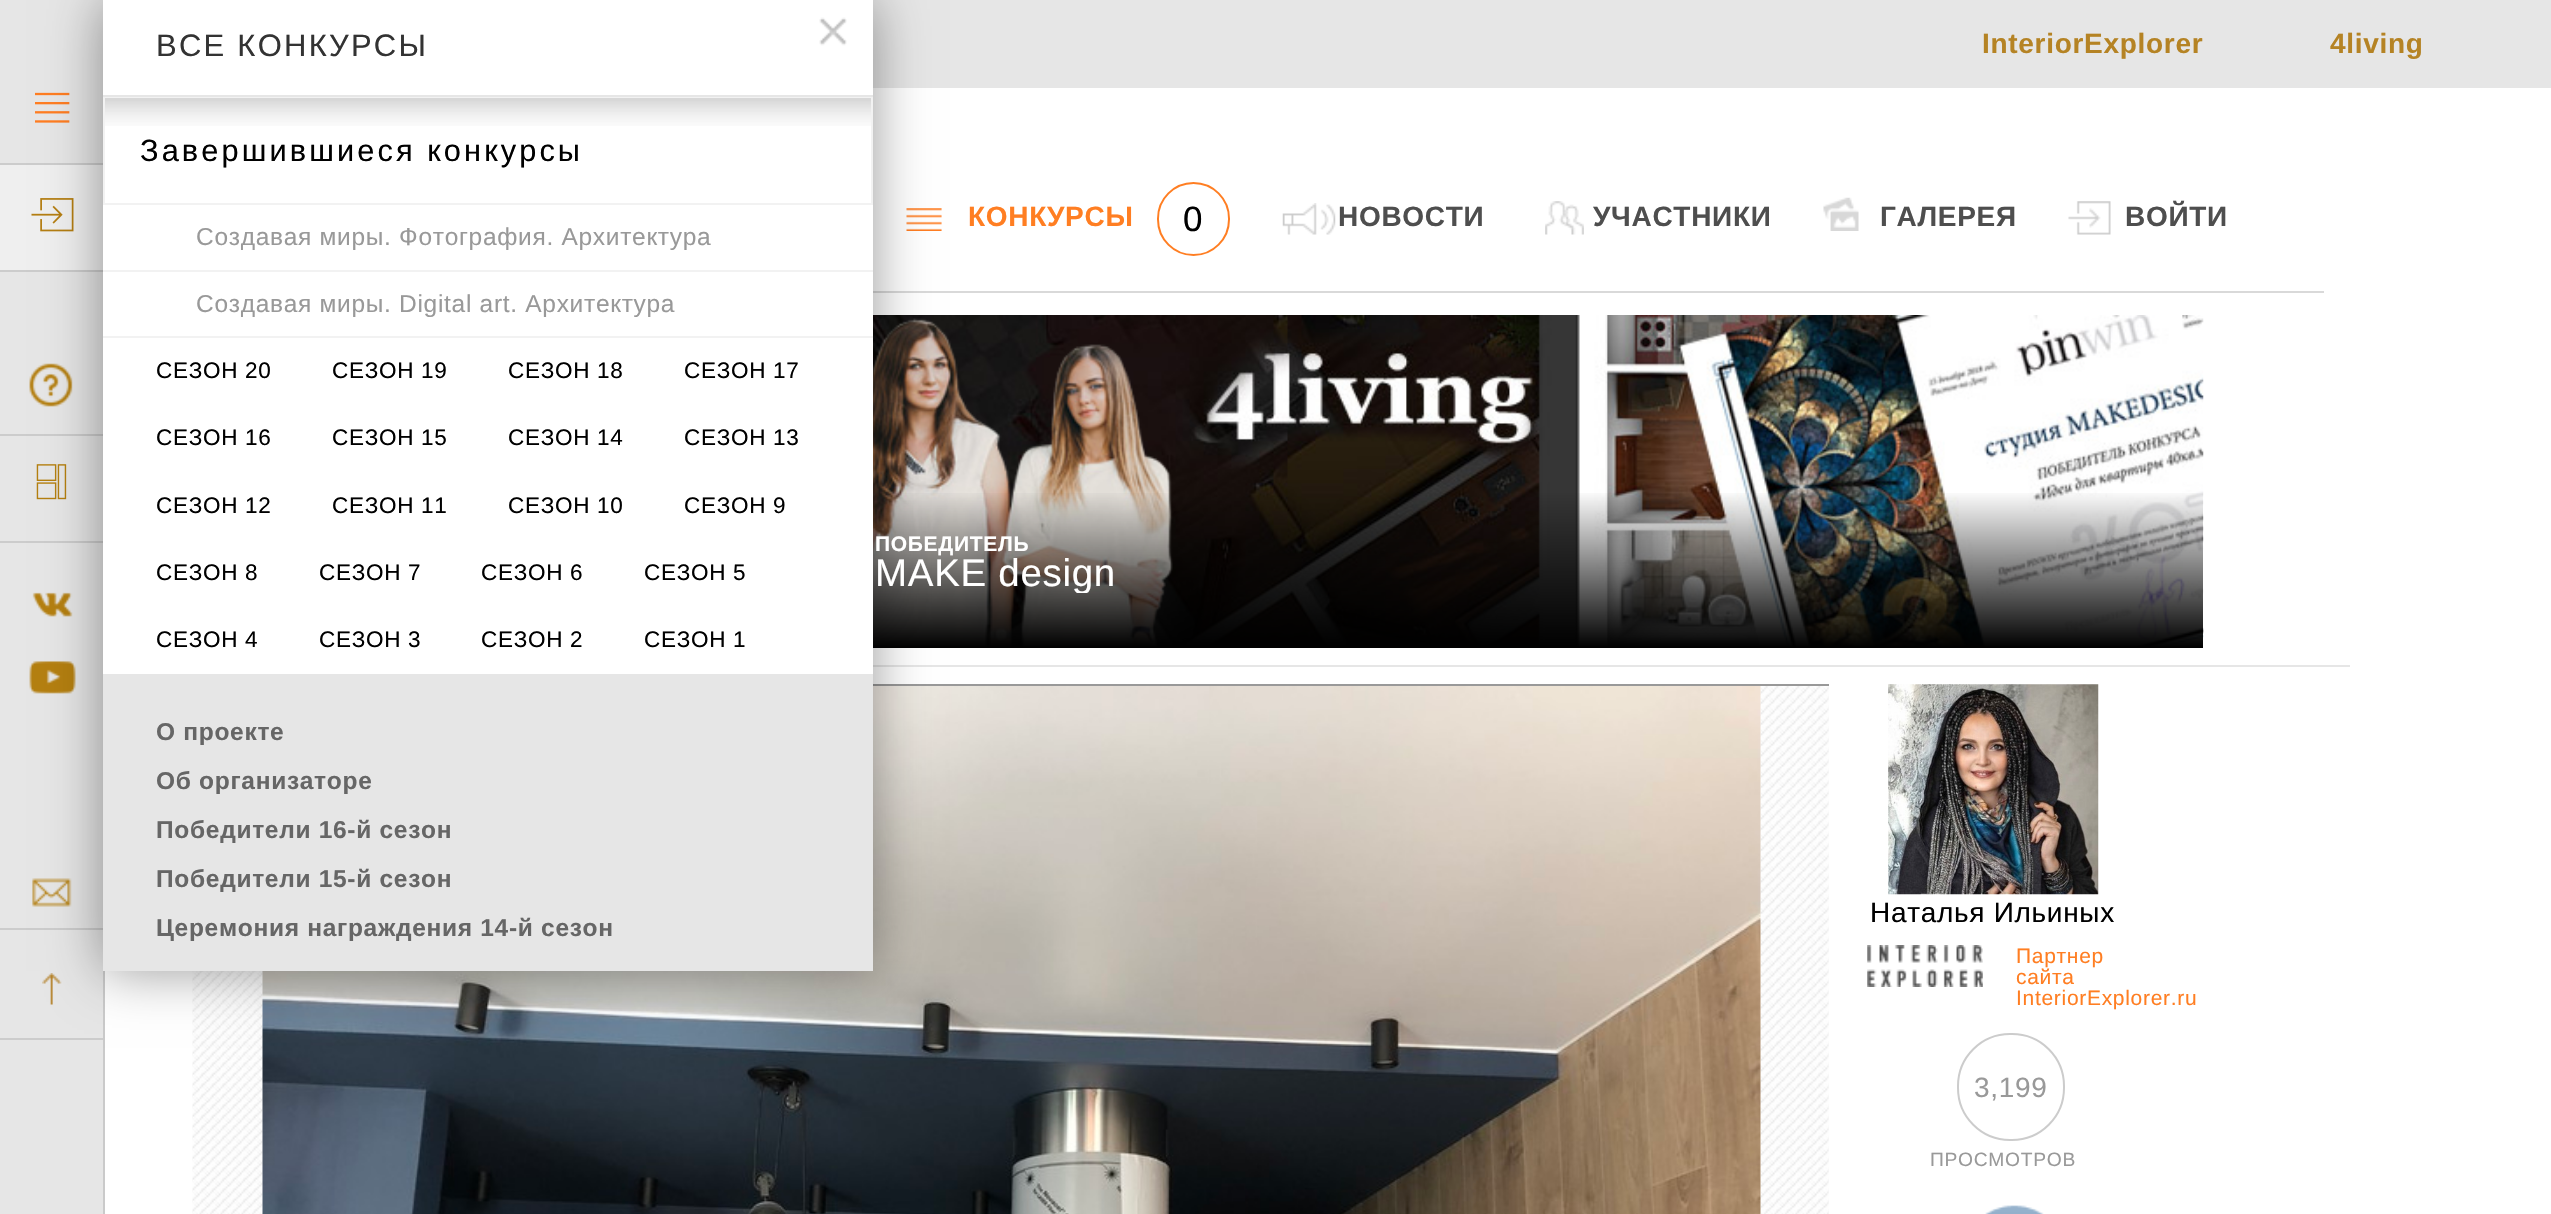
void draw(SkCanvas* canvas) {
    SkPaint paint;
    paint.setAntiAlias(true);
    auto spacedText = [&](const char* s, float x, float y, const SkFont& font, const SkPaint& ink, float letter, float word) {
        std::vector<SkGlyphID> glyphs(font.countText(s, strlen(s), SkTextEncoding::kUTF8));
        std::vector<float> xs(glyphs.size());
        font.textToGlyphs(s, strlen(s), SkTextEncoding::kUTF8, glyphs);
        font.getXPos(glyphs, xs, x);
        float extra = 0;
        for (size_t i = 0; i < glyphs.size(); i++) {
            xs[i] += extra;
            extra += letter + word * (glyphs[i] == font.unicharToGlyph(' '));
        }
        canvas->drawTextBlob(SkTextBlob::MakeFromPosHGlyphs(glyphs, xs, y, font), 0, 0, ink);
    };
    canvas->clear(0xFFE6E6E6);
    paint.setColor(0xFFCACACA);
    canvas->drawRect(SkRect::MakeXYWH(103, 971, 2, 243), paint);
    paint.setColor(0xFFCCCCCC);
    canvas->drawRect(SkRect::MakeXYWH(0, 163, 103, 2), paint);
    canvas->drawImageRect(SkImages::DeferredFromEncodedData(SkData::MakeFromFileName("img1.png")), SkRect::MakeXYWH(35, 92, 35, 31), SkSamplingOptions());
    canvas->drawRect(SkRect::MakeXYWH(0, 270, 103, 2), paint);
    paint.setColor(0xFFEFEFEF);
    canvas->drawRect(SkRect::MakeXYWH(0, 165, 103, 105), paint);
    canvas->drawImageRect(SkImages::DeferredFromEncodedData(SkData::MakeFromFileName("img2.png")), SkRect::MakeXYWH(31, 198, 43, 34), SkSamplingOptions());
    paint.setColor(0xFFCCCCCC);
    canvas->drawRect(SkRect::MakeXYWH(0, 434, 103, 2), paint);
    canvas->drawImageRect(SkImages::DeferredFromEncodedData(SkData::MakeFromFileName("img3.png")), SkRect::MakeXYWH(29, 363, 44, 44), SkSamplingOptions());
    canvas->drawRect(SkRect::MakeXYWH(0, 541, 103, 2), paint);
    canvas->drawImageRect(SkImages::DeferredFromEncodedData(SkData::MakeFromFileName("img4.png")), SkRect::MakeXYWH(36, 464, 31, 36), SkSamplingOptions());
    canvas->drawImageRect(SkImages::DeferredFromEncodedData(SkData::MakeFromFileName("img5.png")), SkRect::MakeXYWH(32, 592, 41, 25), SkSamplingOptions());
    canvas->drawImageRect(SkImages::DeferredFromEncodedData(SkData::MakeFromFileName("img6.png")), SkRect::MakeXYWH(29, 661, 47, 33), SkSamplingOptions());
    canvas->drawRect(SkRect::MakeXYWH(0, 928, 103, 2), paint);
    canvas->drawImageRect(SkImages::DeferredFromEncodedData(SkData::MakeFromFileName("img7.png")), SkRect::MakeXYWH(32, 878, 40, 29), SkSamplingOptions());
    canvas->drawRect(SkRect::MakeXYWH(0, 1038, 103, 2), paint);
    canvas->drawImageRect(SkImages::DeferredFromEncodedData(SkData::MakeFromFileName("img8.png")), SkRect::MakeXYWH(42, 973, 20, 32), SkSamplingOptions());
    paint.setColor(0xFFFFFFFF);
    canvas->drawRect(SkRect::MakeXYWH(105, 88, 2446, 1126), paint);
    canvas->drawImageRect(SkImages::DeferredFromEncodedData(SkData::MakeFromFileName("img11.png")), SkRect::MakeXYWH(906, 208, 36, 23), SkSamplingOptions());
    paint.setColor(0xFFD9D9D9);
    canvas->drawRect(SkRect::MakeXYWH(873, 291, 1451, 2), paint);
    paint.setColor(0xFFE6E6E6);
    canvas->drawRect(SkRect::MakeXYWH(873, 665, 1477, 2), paint);
    canvas->drawImageRect(SkImages::DeferredFromEncodedData(SkData::MakeFromFileName("img16.png")), SkRect::MakeXYWH(873, 315, 1331, 333), SkSamplingOptions());
    canvas->drawImageRect(SkImages::DeferredFromEncodedData(SkData::MakeFromFileName("img17.png")), SkRect::MakeXYWH(873, 318, 300, 329), SkSamplingOptions());
    {
        const SkColor colors[] = {0x00000000, 0xFF000000};
        const float stops[] = {0, 1};
        const SkPoint ends[] = {{1522, 490}, {1522, 648}};
        paint.setShader(SkGradientShader::MakeLinear(ends, colors, stops, 2, SkTileMode::kClamp));
        paint.setAlpha(255);
    }
    canvas->drawRect(SkRect::MakeXYWH(873, 493, 1330, 155), paint);
    canvas->drawImageRect(SkImages::DeferredFromEncodedData(SkData::MakeFromFileName("img18.png")), SkRect::MakeXYWH(192, 686, 1637, 528), SkSamplingOptions());
    paint.setShader(nullptr);
    paint.setColor(0xFF999999);
    canvas->drawRect(SkRect::MakeXYWH(873, 684, 956, 2), paint);
    canvas->drawImageRect(SkImages::DeferredFromEncodedData(SkData::MakeFromFileName("img19.png")), SkRect::MakeXYWH(262, 686, 1499, 528), SkSamplingOptions());
    paint.setColor(0x66000000);
    paint.setMaskFilter(SkMaskFilter::MakeBlur(kNormal_SkBlurStyle, 26));
    canvas->drawRect(SkRect::MakeXYWH(103, 0, 770, 971), paint);
    paint.setMaskFilter(nullptr);
    paint.setColor(0xFFFFFFFF);
    canvas->drawRect(SkRect::MakeXYWH(103, 0, 770, 674), paint);
    canvas->drawImageRect(SkImages::DeferredFromEncodedData(SkData::MakeFromFileName("img9.png")), SkRect::MakeXYWH(105, 98, 766, 28), SkSamplingOptions());
    paint.setStyle(SkPaint::kStroke_Style);
    paint.setStrokeWidth(2);
    paint.setColor(0xFFF2F2F2);
    canvas->drawRect(SkRect::MakeXYWH(104, 97, 768, 107), paint);
    paint.setStyle(SkPaint::kFill_Style);
    paint.setColor(0xFFE6E6E6);
    canvas->drawRect(SkRect::MakeXYWH(103, 95, 770, 2), paint);
    SkFont font1(fontMgr->matchFamilyStyle("Liberation Sans", SkFontStyle::Normal()), 31);
    font1.setSubpixel(true);
    paint.setColor(0xFF333333);
    spacedText("ВСЕ КОНКУРСЫ", 156, 56, font1, paint, 2.25f, 0);
    SkFont font2(fontMgr->matchFamilyStyle("Liberation Sans", SkFontStyle::Normal()), 30.75f);
    font2.setSubpixel(true);
    paint.setColor(0xFF000000);
    spacedText("Завершившиеся конкурсы", 140, 161, font2, paint, 3.1f, 0);
    paint.setColor(0xFFF2F2F2);
    canvas->drawRect(SkRect::MakeXYWH(103, 270, 770, 2), paint);
    SkFont font3(fontMgr->matchFamilyStyle("Liberation Sans", SkFontStyle::Normal()), 24.5f);
    font3.setSubpixel(true);
    paint.setColor(0xFF999999);
    spacedText("Создавая миры. Фотография. Архитектура", 196, 245, font3, paint, 0.7f, 0);
    paint.setColor(0xFFF2F2F2);
    canvas->drawRect(SkRect::MakeXYWH(103, 336, 770, 2), paint);
    paint.setColor(0xFF999999);
    spacedText("Создавая миры. Digital art. Архитектура", 196, 312, font3, paint, 0.7f, 0);
    SkFont font4(fontMgr->matchFamilyStyle("Liberation Sans", SkFontStyle::Normal()), 22.5f);
    font4.setSubpixel(true);
    paint.setColor(0xFF000000);
    spacedText("СЕЗОН 20", 156, 378, font4, paint, 0.7f, 0);
    spacedText("СЕЗОН 19", 332, 378, font4, paint, 0.7f, 0);
    spacedText("СЕЗОН 18", 508, 378, font4, paint, 0.7f, 0);
    spacedText("СЕЗОН 17", 684, 378, font4, paint, 0.7f, 0);
    spacedText("СЕЗОН 16", 156, 445, font4, paint, 0.7f, 0);
    spacedText("СЕЗОН 15", 332, 445, font4, paint, 0.7f, 0);
    spacedText("СЕЗОН 14", 508, 445, font4, paint, 0.7f, 0);
    spacedText("СЕЗОН 13", 684, 445, font4, paint, 0.7f, 0);
    spacedText("СЕЗОН 12", 156, 513, font4, paint, 0.7f, 0);
    spacedText("СЕЗОН 11", 332, 513, font4, paint, 0.7f, 0);
    spacedText("СЕЗОН 10", 508, 513, font4, paint, 0.7f, 0);
    spacedText("СЕЗОН 9", 684, 513, font4, paint, 0.7f, 0);
    spacedText("СЕЗОН 8", 156, 580, font4, paint, 0.7f, 0);
    spacedText("СЕЗОН 7", 319, 580, font4, paint, 0.7f, 0);
    spacedText("СЕЗОН 6", 481, 580, font4, paint, 0.7f, 0);
    spacedText("СЕЗОН 5", 644, 580, font4, paint, 0.7f, 0);
    spacedText("СЕЗОН 4", 156, 647, font4, paint, 0.7f, 0);
    spacedText("СЕЗОН 3", 319, 647, font4, paint, 0.7f, 0);
    spacedText("СЕЗОН 2", 481, 647, font4, paint, 0.7f, 0);
    spacedText("СЕЗОН 1", 644, 647, font4, paint, 0.7f, 0);
    canvas->drawImageRect(SkImages::DeferredFromEncodedData(SkData::MakeFromFileName("img10.png")), SkRect::MakeXYWH(819, 17, 28, 29), SkSamplingOptions());
    paint.setColor(0xFFE6E6E6);
    canvas->drawRect(SkRect::MakeXYWH(103, 674, 770, 297), paint);
    SkFont font5(fontMgr->matchFamilyStyle("Liberation Sans", SkFontStyle::Bold()), 24.5f);
    font5.setSubpixel(true);
    paint.setColor(0xFF666666);
    spacedText("О проекте", 156, 740, font5, paint, 0.7f, 0);
    spacedText("Об организаторе", 156, 789, font5, paint, 0.7f, 0);
    spacedText("Победители 16-й сезон", 156, 838, font5, paint, 0.7f, 0);
    spacedText("Победители 15-й сезон", 156, 887, font5, paint, 0.7f, 0);
    spacedText("Церемония награждения 14-й сезон", 156, 936, font5, paint, 0.7f, 0);
    SkFont font6(fontMgr->matchFamilyStyle("Liberation Sans", SkFontStyle::Bold()), 28);
    font6.setSubpixel(true);
    paint.setColor(0xFFB58324);
    spacedText("InteriorExplorer", 1982, 53, font6, paint, 0.7f, 0);
    spacedText("4living", 2330, 53, font6, paint, 0.7f, 0);
    paint.setColor(0xFFFF7E22);
    spacedText("КОНКУРСЫ", 968, 226, font6, paint, 0.7f, 0);
    paint.setStyle(SkPaint::kStroke_Style);
    canvas->drawRoundRect(SkRect::MakeXYWH(1158, 183, 71, 72), 35.5f, 35.5f, paint);
    SkFont font7(fontMgr->matchFamilyStyle("Liberation Sans", SkFontStyle::Normal()), 35);
    font7.setSubpixel(true);
    paint.setStyle(SkPaint::kFill_Style);
    paint.setColor(0xFF000000);
    spacedText("0", 1183, 231, font7, paint, 0.7f, 0);
    canvas->drawImageRect(SkImages::DeferredFromEncodedData(SkData::MakeFromFileName("img12.png")), SkRect::MakeXYWH(1282, 203, 54, 32), SkSamplingOptions());
    paint.setColor(0xFF4E4E4E);
    spacedText("НОВОСТИ", 1338, 226, font6, paint, 0.7f, 0);
    canvas->drawImageRect(SkImages::DeferredFromEncodedData(SkData::MakeFromFileName("img13.png")), SkRect::MakeXYWH(1545, 201, 39, 34), SkSamplingOptions());
    spacedText("УЧАСТНИКИ", 1593, 226, font6, paint, 0.7f, 0);
    canvas->drawImageRect(SkImages::DeferredFromEncodedData(SkData::MakeFromFileName("img14.png")), SkRect::MakeXYWH(1823, 197, 36, 34), SkSamplingOptions());
    spacedText("ГАЛЕРЕЯ", 1880, 226, font6, paint, 0.7f, 0);
    canvas->drawImageRect(SkImages::DeferredFromEncodedData(SkData::MakeFromFileName("img15.png")), SkRect::MakeXYWH(2068, 201, 43, 34), SkSamplingOptions());
    spacedText("ВОЙТИ", 2125, 226, font6, paint, 0.7f, 0);
    SkFont font8(fontMgr->matchFamilyStyle("Liberation Sans", SkFontStyle::Bold()), 21);
    font8.setSubpixel(true);
    paint.setColor(0xFFFFFFFF);
    spacedText("ПОБЕДИТЕЛЬ", 875, 551, font8, paint, 0.7f, 0);
    canvas->save();
    canvas->clipRect(SkRect::MakeXYWH(875, 534, 242, 59));
    SkFont font9(fontMgr->matchFamilyStyle("Liberation Sans", SkFontStyle::Normal()), 38.5f);
    font9.setSubpixel(true);
    spacedText("MAKE design", 875, 586, font9, paint, 0.7f, 0);
    canvas->restore();
    canvas->drawImageRect(SkImages::DeferredFromEncodedData(SkData::MakeFromFileName("img20.png")), SkRect::MakeXYWH(1888, 684, 211, 211), SkSamplingOptions());
    SkFont font10(fontMgr->matchFamilyStyle("Liberation Sans", SkFontStyle::Normal()), 28);
    font10.setSubpixel(true);
    paint.setColor(0xFF000000);
    spacedText("Наталья Ильиных", 1870, 922, font10, paint, 0.7f, 0);
    canvas->drawImageRect(SkImages::DeferredFromEncodedData(SkData::MakeFromFileName("img21.png")), SkRect::MakeXYWH(1867, 945, 116, 42), SkSamplingOptions());
    SkFont font11(fontMgr->matchFamilyStyle("Liberation Sans", SkFontStyle::Normal()), 21);
    font11.setSubpixel(true);
    paint.setColor(0xFFFF7E22);
    spacedText("Партнер", 2016, 963, font11, paint, 0.7f, 0);
    spacedText("сайта", 2016, 984, font11, paint, 0.7f, 0);
    spacedText("InteriorExplorer.ru", 2016, 1005, font11, paint, 0.7f, 0);
    paint.setStyle(SkPaint::kStroke_Style);
    paint.setColor(0xFFCCCCCC);
    canvas->drawRoundRect(SkRect::MakeXYWH(1958, 1034, 106, 106), 52, 52, paint);
    paint.setStyle(SkPaint::kFill_Style);
    paint.setColor(0xFF999999);
    spacedText("3,199", 1974, 1097, font10, paint, 0.7f, 0);
    SkFont font12(fontMgr->matchFamilyStyle("Liberation Sans", SkFontStyle::Normal()), 19.25f);
    font12.setSubpixel(true);
    spacedText("ПРОСМОТРОВ", 1930, 1166, font12, paint, 0.7f, 0);
    canvas->drawImageRect(SkImages::DeferredFromEncodedData(SkData::MakeFromFileName("img22.png")), SkRect::MakeXYWH(1985, 1205, 59, 9), SkSamplingOptions());
}
